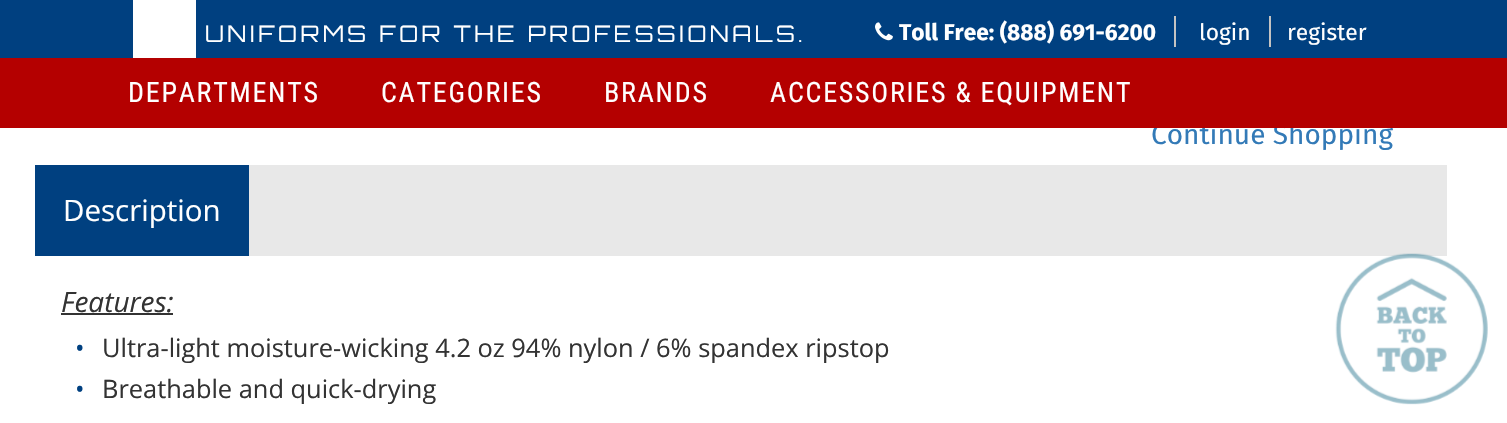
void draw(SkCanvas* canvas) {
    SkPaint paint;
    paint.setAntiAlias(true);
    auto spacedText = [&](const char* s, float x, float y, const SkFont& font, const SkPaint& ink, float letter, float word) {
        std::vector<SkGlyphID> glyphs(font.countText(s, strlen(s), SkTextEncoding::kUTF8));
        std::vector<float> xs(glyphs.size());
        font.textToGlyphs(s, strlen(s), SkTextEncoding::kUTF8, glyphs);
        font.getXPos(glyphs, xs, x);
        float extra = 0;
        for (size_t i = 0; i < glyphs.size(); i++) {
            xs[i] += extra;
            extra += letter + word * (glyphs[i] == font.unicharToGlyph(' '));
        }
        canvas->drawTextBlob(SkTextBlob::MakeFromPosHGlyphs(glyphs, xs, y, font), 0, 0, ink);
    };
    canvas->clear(0xFFFFFFFF);
    paint.setColor(0xFF004080);
    canvas->drawRect(SkRect::MakeXYWH(0, 0, 1507, 58), paint);
    paint.setColor(0xFFFFFFFF);
    canvas->drawRect(SkRect::MakeXYWH(133, 0, 63, 58), paint);
    SkFont font1(fontMgr->matchFamilyStyle("Orbitron", SkFontStyle::Normal()), 22.75f);
    font1.setSubpixel(true);
    spacedText("UNIFORMS FOR THE PROFESSIONALS.", 205, 42, font1, paint, 3.5f, 0);
    paint.setColor(0xFFC4C3C2);
    canvas->drawRect(SkRect::MakeXYWH(1174, 16, 2, 31), paint);
    canvas->drawImageRect(SkImages::DeferredFromEncodedData(SkData::MakeFromFileName("img1.png")), SkRect::MakeXYWH(875, 22, 18, 19), SkSamplingOptions());
    SkFont font2(fontMgr->matchFamilyStyle("Fira Sans", SkFontStyle::Bold()), 22.75f);
    font2.setSubpixel(true);
    paint.setColor(0xFFFFFFFF);
    canvas->drawString("Toll Free: (888) 691-6200", 899, 40, font2, paint);
    SkFont font3(fontMgr->matchFamilyStyle("Fira Sans", SkFontStyle::Normal()), 22.75f);
    font3.setSubpixel(true);
    canvas->drawString("login", 1199, 40, font3, paint);
    paint.setColor(0xFFC4C3C2);
    canvas->drawRect(SkRect::MakeXYWH(1269, 16, 2, 31), paint);
    paint.setColor(0xFFFFFFFF);
    canvas->drawString("register", 1287, 40, font3, paint);
    SkFont font4(fontMgr->matchFamilyStyle("Fira Sans", SkFontStyle::Normal()), 28);
    font4.setSubpixel(true);
    paint.setColor(0xFF337AB7);
    canvas->drawString("Continue Shopping", 1151, 144, font4, paint);
    paint.setColor(0xFFB40000);
    canvas->drawRect(SkRect::MakeXYWH(0, 58, 1507, 70), paint);
    SkFont font5(fontMgr->matchFamilyStyle("Roboto Condensed", SkFontStyle::Normal()), 28);
    font5.setSubpixel(true);
    paint.setColor(0xFFFFFFFF);
    spacedText("DEPARTMENTS", 128, 102, font5, paint, 1.75f, 0);
    spacedText("CATEGORIES", 381, 102, font5, paint, 1.75f, 0);
    spacedText("BRANDS", 604, 102, font5, paint, 1.75f, 0);
    spacedText("ACCESSORIES & EQUIPMENT", 770, 102, font5, paint, 1.75f, 0);
    paint.setColor(0xFFE8E8E8);
    canvas->drawRect(SkRect::MakeXYWH(249, 165, 1198, 91), paint);
    paint.setColor(0xFF004080);
    canvas->drawRect(SkRect::MakeXYWH(35, 165, 214, 91), paint);
    SkFont font6(fontMgr->matchFamilyStyle("Open Sans", SkFontStyle::Normal()), 29.5f);
    font6.setSubpixel(true);
    paint.setColor(0xFFFFFFFF);
    canvas->drawString("Description", 63, 221, font6, paint);
    SkFont font7(fontMgr->matchFamilyStyle("Open Sans", SkFontStyle::Italic()), 28);
    font7.setSubpixel(true);
    paint.setColor(0xFF333333);
    canvas->drawString("Features:", 61, 312, font7, paint);
    canvas->drawRect(SkRect::MakeXYWH(61, 313, 112, 2), paint);
    SkFont font8(fontMgr->matchFamilyStyle("Open Sans", SkFontStyle::Normal()), 25.4f);
    font8.setSubpixel(true);
    paint.setColor(0xFF004080);
    canvas->drawString("•", 75, 357, font8, paint);
    paint.setColor(0xFF333333);
    canvas->drawString("Ultra-light moisture-wicking 4.2 oz 94% nylon / 6% spandex ripstop", 102, 357, font8, paint);
    paint.setColor(0xFF004080);
    canvas->drawString("•", 75, 398, font8, paint);
    paint.setColor(0xFF333333);
    canvas->drawString("Breathable and quick-drying", 102, 398, font8, paint);
    canvas->drawImageRect(SkImages::DeferredFromEncodedData(SkData::MakeFromFileName("img2.png")), SkRect::MakeXYWH(1335, 253, 153, 152), SkSamplingOptions());
}
